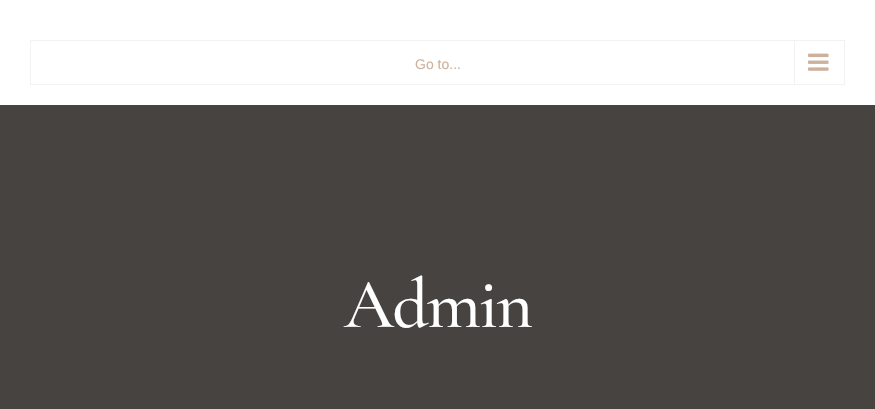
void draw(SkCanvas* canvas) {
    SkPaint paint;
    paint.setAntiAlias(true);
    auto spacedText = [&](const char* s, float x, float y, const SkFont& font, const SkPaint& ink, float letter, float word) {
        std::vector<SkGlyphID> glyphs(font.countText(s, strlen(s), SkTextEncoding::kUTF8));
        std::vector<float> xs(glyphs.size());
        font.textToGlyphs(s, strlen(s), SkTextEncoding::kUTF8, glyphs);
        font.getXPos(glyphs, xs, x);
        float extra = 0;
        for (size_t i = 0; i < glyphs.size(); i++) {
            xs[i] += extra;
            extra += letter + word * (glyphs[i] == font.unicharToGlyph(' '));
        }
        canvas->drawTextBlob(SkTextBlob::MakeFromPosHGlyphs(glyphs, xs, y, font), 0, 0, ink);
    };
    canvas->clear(0xFFFFFFFF);
    paint.setStyle(SkPaint::kStroke_Style);
    paint.setStrokeWidth(1);
    paint.setColor(0xFFF2F2F5);
    canvas->drawRect(SkRect::MakeXYWH(30.5f, 40.5f, 814, 44), paint);
    SkFont font1(fontMgr->matchFamilyStyle("Liberation Sans", SkFontStyle::Normal()), 14);
    font1.setSubpixel(true);
    paint.setStyle(SkPaint::kFill_Style);
    paint.setColor(0xFFCEB19C);
    canvas->drawString("Go to...", 415, 69, font1, paint);
    paint.setColor(0xFFF2F2F5);
    canvas->drawRect(SkRect::MakeXYWH(794, 41, 1, 43), paint);
    canvas->drawImageRect(SkImages::DeferredFromEncodedData(SkData::MakeFromFileName("img1.png")), SkRect::MakeXYWH(808, 53, 21, 18), SkSamplingOptions());
    paint.setColor(0xFF474340);
    canvas->drawRect(SkRect::MakeXYWH(0, 105, 875, 304), paint);
    SkFont font2(fontMgr->matchFamilyStyle("Cormorant Garamond", SkFontStyle(500, SkFontStyle::kNormal_Width, SkFontStyle::kUpright_Slant)), 71);
    font2.setSubpixel(true);
    paint.setColor(0xFFFFFFFF);
    spacedText("Admin", 344, 327, font2, paint, -2, 0);
}
